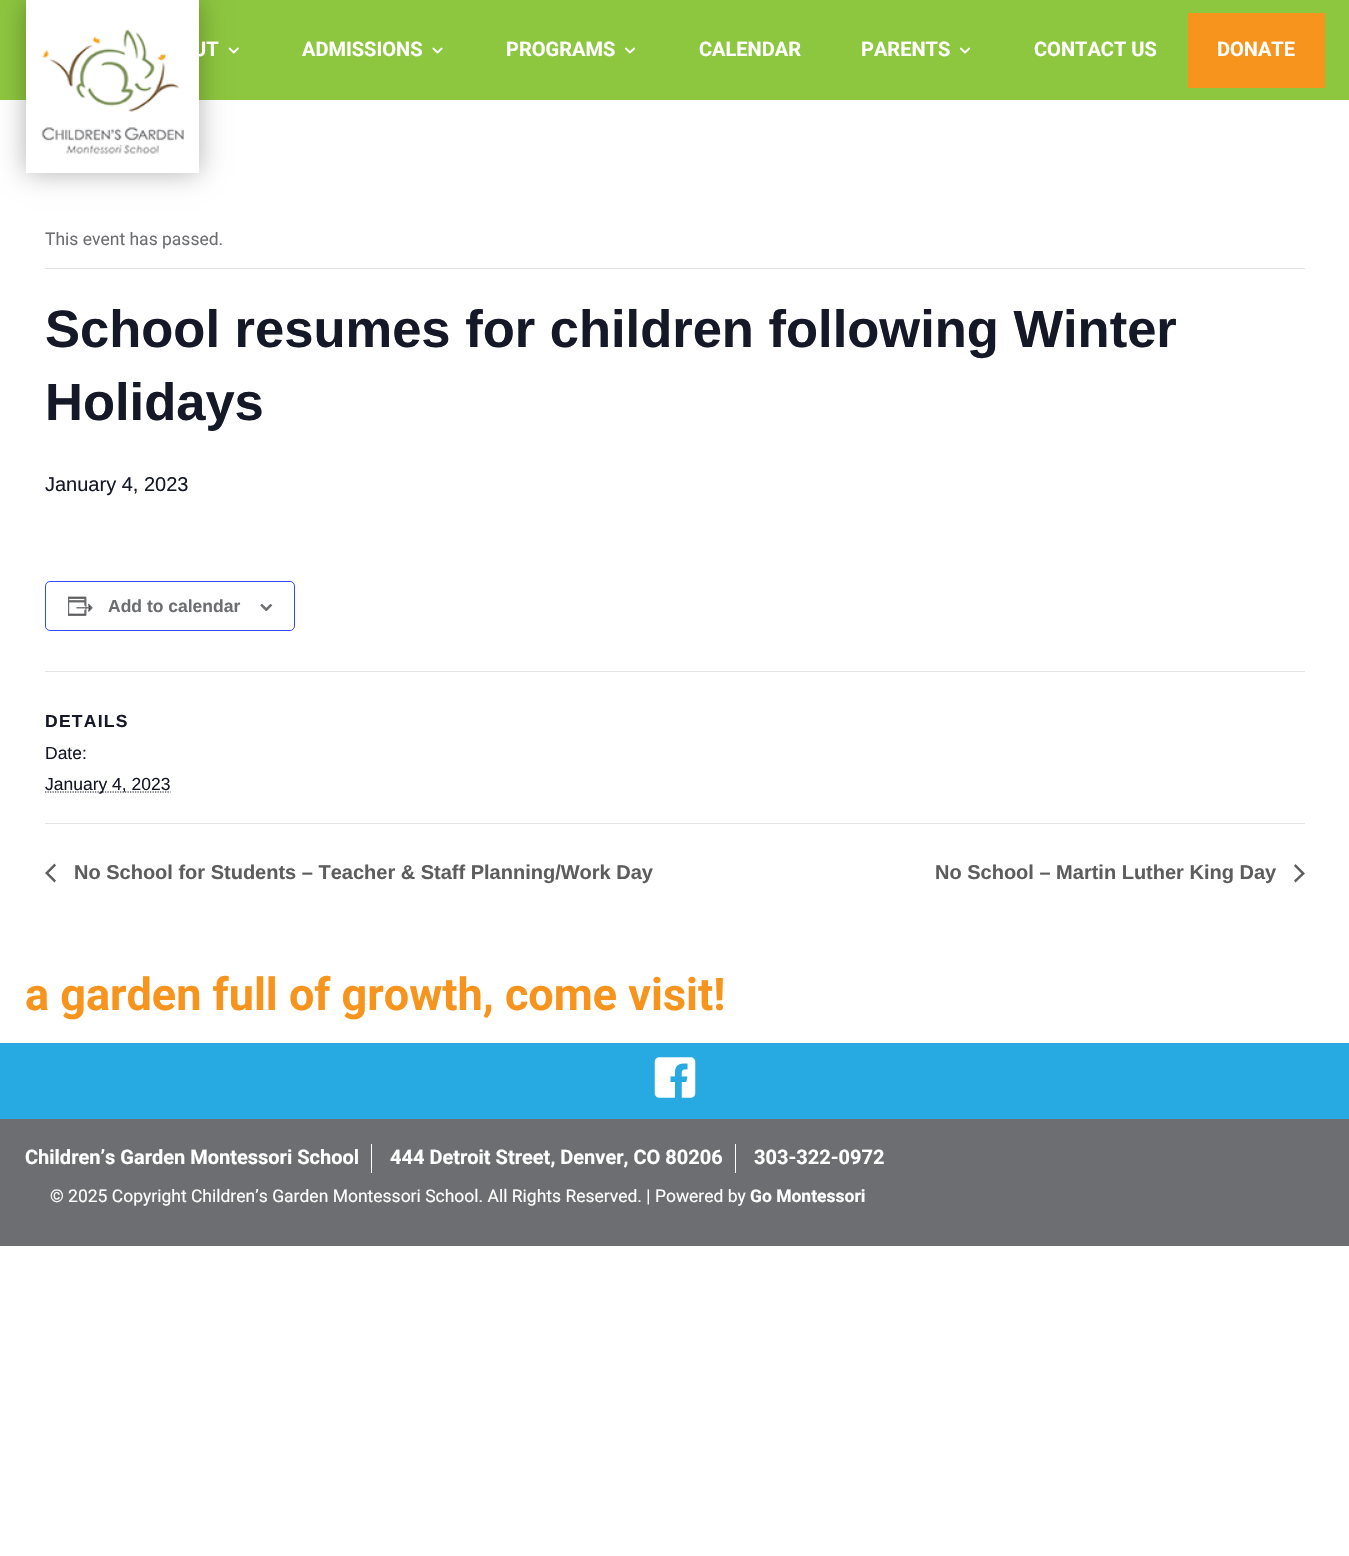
void draw(SkCanvas* canvas) {
    SkPaint paint;
    paint.setAntiAlias(true);
    auto spacedText = [&](const char* s, float x, float y, const SkFont& font, const SkPaint& ink, float letter, float word) {
        std::vector<SkGlyphID> glyphs(font.countText(s, strlen(s), SkTextEncoding::kUTF8));
        std::vector<float> xs(glyphs.size());
        font.textToGlyphs(s, strlen(s), SkTextEncoding::kUTF8, glyphs);
        font.getXPos(glyphs, xs, x);
        float extra = 0;
        for (size_t i = 0; i < glyphs.size(); i++) {
            xs[i] += extra;
            extra += letter + word * (glyphs[i] == font.unicharToGlyph(' '));
        }
        canvas->drawTextBlob(SkTextBlob::MakeFromPosHGlyphs(glyphs, xs, y, font), 0, 0, ink);
    };
    canvas->clear(0xFFFFFFFF);
    paint.setColor(0xFF8DC63F);
    canvas->drawRect(SkRect::MakeXYWH(0, 0, 1349, 100), paint);
    paint.setColor(0x4D000000);
    paint.setMaskFilter(SkMaskFilter::MakeBlur(kNormal_SkBlurStyle, 12.5f));
    canvas->drawRect(SkRect::MakeXYWH(26, 0, 173, 173), paint);
    paint.setMaskFilter(nullptr);
    paint.setColor(0xFFFFFFFF);
    canvas->drawRect(SkRect::MakeXYWH(26, 0, 173, 173), paint);
    canvas->drawImageRect(SkImages::DeferredFromEncodedData(SkData::MakeFromFileName("img1.png")), SkRect::MakeXYWH(41, 29, 143, 125), SkSamplingOptions());
    SkFont font1(fontMgr->matchFamilyStyle("Roboto", SkFontStyle::Bold()), 20);
    font1.setSubpixel(true);
    canvas->drawString("UT", 193, 56, font1, paint);
    canvas->drawImageRect(SkImages::DeferredFromEncodedData(SkData::MakeFromFileName("img2.png")), SkRect::MakeXYWH(228, 47, 11, 7), SkSamplingOptions());
    canvas->drawString("ADMISSIONS", 302, 56, font1, paint);
    canvas->drawImageRect(SkImages::DeferredFromEncodedData(SkData::MakeFromFileName("img3.png")), SkRect::MakeXYWH(432, 47, 11, 7), SkSamplingOptions());
    canvas->drawString("PROGRAMS", 506, 56, font1, paint);
    canvas->drawImageRect(SkImages::DeferredFromEncodedData(SkData::MakeFromFileName("img4.png")), SkRect::MakeXYWH(624, 47, 11, 7), SkSamplingOptions());
    canvas->drawString("CALENDAR", 699, 56, font1, paint);
    canvas->drawString("PARENTS", 861, 56, font1, paint);
    canvas->drawImageRect(SkImages::DeferredFromEncodedData(SkData::MakeFromFileName("img4.png")), SkRect::MakeXYWH(959, 47, 11, 7), SkSamplingOptions());
    canvas->drawString("CONTACT US", 1034, 56, font1, paint);
    paint.setColor(0xFFF7941E);
    canvas->drawRect(SkRect::MakeXYWH(1188, 13, 137, 75), paint);
    paint.setColor(0xFFFFFFFF);
    canvas->drawString("DONATE", 1217, 56, font1, paint);
    paint.setColor(0xFFE4E4E4);
    canvas->drawRect(SkRect::MakeXYWH(45, 268, 1260, 1), paint);
    SkFont font2(fontMgr->matchFamilyStyle("Roboto", SkFontStyle::Normal()), 17.5f);
    font2.setSubpixel(true);
    paint.setColor(0xFF6D6E71);
    canvas->drawString("This event has passed.", 45, 245, font2, paint);
    SkFont font3(fontMgr->matchFamilyStyle("Liberation Sans", SkFontStyle::Bold()), 52.5f);
    font3.setSubpixel(true);
    paint.setColor(0xFF141827);
    canvas->drawString("School resumes for children following Winter", 45, 347, font3, paint);
    canvas->drawString("Holidays", 45, 420, font3, paint);
    SkFont font4(fontMgr->matchFamilyStyle("Liberation Sans", SkFontStyle::Normal()), 20);
    font4.setSubpixel(true);
    canvas->drawString("January 4, 2023", 45, 491, font4, paint);
    paint.setStyle(SkPaint::kStroke_Style);
    paint.setStrokeWidth(1);
    paint.setColor(0xFF334AFF);
    canvas->drawRoundRect(SkRect::MakeXYWH(45.5f, 581.5f, 249, 49), 4.5f, 4.5f, paint);
    canvas->drawImageRect(SkImages::DeferredFromEncodedData(SkData::MakeFromFileName("img5.png")), SkRect::MakeXYWH(68, 596, 25, 20), SkSamplingOptions());
    SkFont font5(fontMgr->matchFamilyStyle("Liberation Sans", SkFontStyle::Bold()), 17.5f);
    font5.setSubpixel(true);
    paint.setStyle(SkPaint::kFill_Style);
    paint.setColor(0xFF6D6E71);
    canvas->drawString("Add to calendar", 108, 612, font5, paint);
    canvas->drawImageRect(SkImages::DeferredFromEncodedData(SkData::MakeFromFileName("img6.png")), SkRect::MakeXYWH(260, 604, 13, 7), SkSamplingOptions());
    paint.setColor(0xFFE4E4E4);
    canvas->drawRect(SkRect::MakeXYWH(45, 671, 1260, 1), paint);
    paint.setColor(0xFF141827);
    spacedText("DETAILS", 45, 727, font5, paint, 1.25f, 0);
    SkFont font6(fontMgr->matchFamilyStyle("Liberation Sans", SkFontStyle::Normal()), 17.5f);
    font6.setSubpixel(true);
    canvas->drawString("Date:", 45, 759, font6, paint);
    paint.setStyle(SkPaint::kStroke_Style);
    paint.setStrokeWidth(1.2f);
    paint.setPathEffect(SkDashPathEffect::Make({{1.25f, 1.25f}}, 0));
    canvas->drawPath(SkPathBuilder().moveTo(45, 792).lineTo(170.5f, 792).detach(), paint);
    paint.setPathEffect(nullptr);
    paint.setStyle(SkPaint::kFill_Style);
    canvas->drawString("January 4, 2023", 45, 790, font6, paint);
    paint.setColor(0xFFE4E4E4);
    canvas->drawRect(SkRect::MakeXYWH(45, 823, 1260, 1), paint);
    paint.setColor(0xFF5D5D5D);
    canvas->drawPath(SkPathBuilder().moveTo(56, 880.5f).lineTo(54.5f, 882.5f).lineTo(45, 873).lineTo(54.5f, 863.5f).lineTo(56, 865.5f).lineTo(48.5f, 873).close().detach(), paint);
    SkFont font7(fontMgr->matchFamilyStyle("Liberation Sans", SkFontStyle::Bold()), 20);
    font7.setSubpixel(true);
    canvas->drawString("No School for Students – Teacher & Staff Planning/Work Day", 74, 879, font7, paint);
    canvas->drawString("No School – Martin Luther King Day", 935, 879, font7, paint);
    canvas->drawPath(SkPathBuilder().moveTo(1294, 866).lineTo(1295.5f, 864).lineTo(1305, 873.5f).lineTo(1295.5f, 882.5f).lineTo(1294, 880.5f).lineTo(1301.5f, 873.5f).close().detach(), paint);
    SkFont font8(fontMgr->matchFamilyStyle("Roboto", SkFontStyle::Bold()), 45);
    font8.setSubpixel(true);
    paint.setColor(0xFFF7941E);
    canvas->drawString("a garden full of growth, come visit!", 25, 1010, font8, paint);
    paint.setColor(0xFF27AAE1);
    canvas->drawRect(SkRect::MakeXYWH(0, 1043, 1349, 76), paint);
    canvas->drawImageRect(SkImages::DeferredFromEncodedData(SkData::MakeFromFileName("img7.png")), SkRect::MakeXYWH(654, 1057, 42, 41), SkSamplingOptions());
    paint.setColor(0xFF6D6E71);
    canvas->drawRect(SkRect::MakeXYWH(0, 1119, 1349, 127), paint);
    paint.setColor(0xFFFFFFFF);
    canvas->drawRect(SkRect::MakeXYWH(371, 1144, 1, 29), paint);
    canvas->drawString("Children’s Garden Montessori School", 25, 1164, font1, paint);
    canvas->drawRect(SkRect::MakeXYWH(735, 1144, 1, 29), paint);
    canvas->drawString("444 Detroit Street, Denver, CO 80206", 390, 1164, font1, paint);
    canvas->drawString("303-322-0972", 754, 1164, font1, paint);
    canvas->drawString("© 2025 Copyright Children’s Garden Montessori School. All Rights Reserved. | Powered by", 50, 1202, font2, paint);
    SkFont font9(fontMgr->matchFamilyStyle("Roboto", SkFontStyle::Bold()), 17.5f);
    font9.setSubpixel(true);
    canvas->drawString("Go Montessori", 750, 1202, font9, paint);
}
